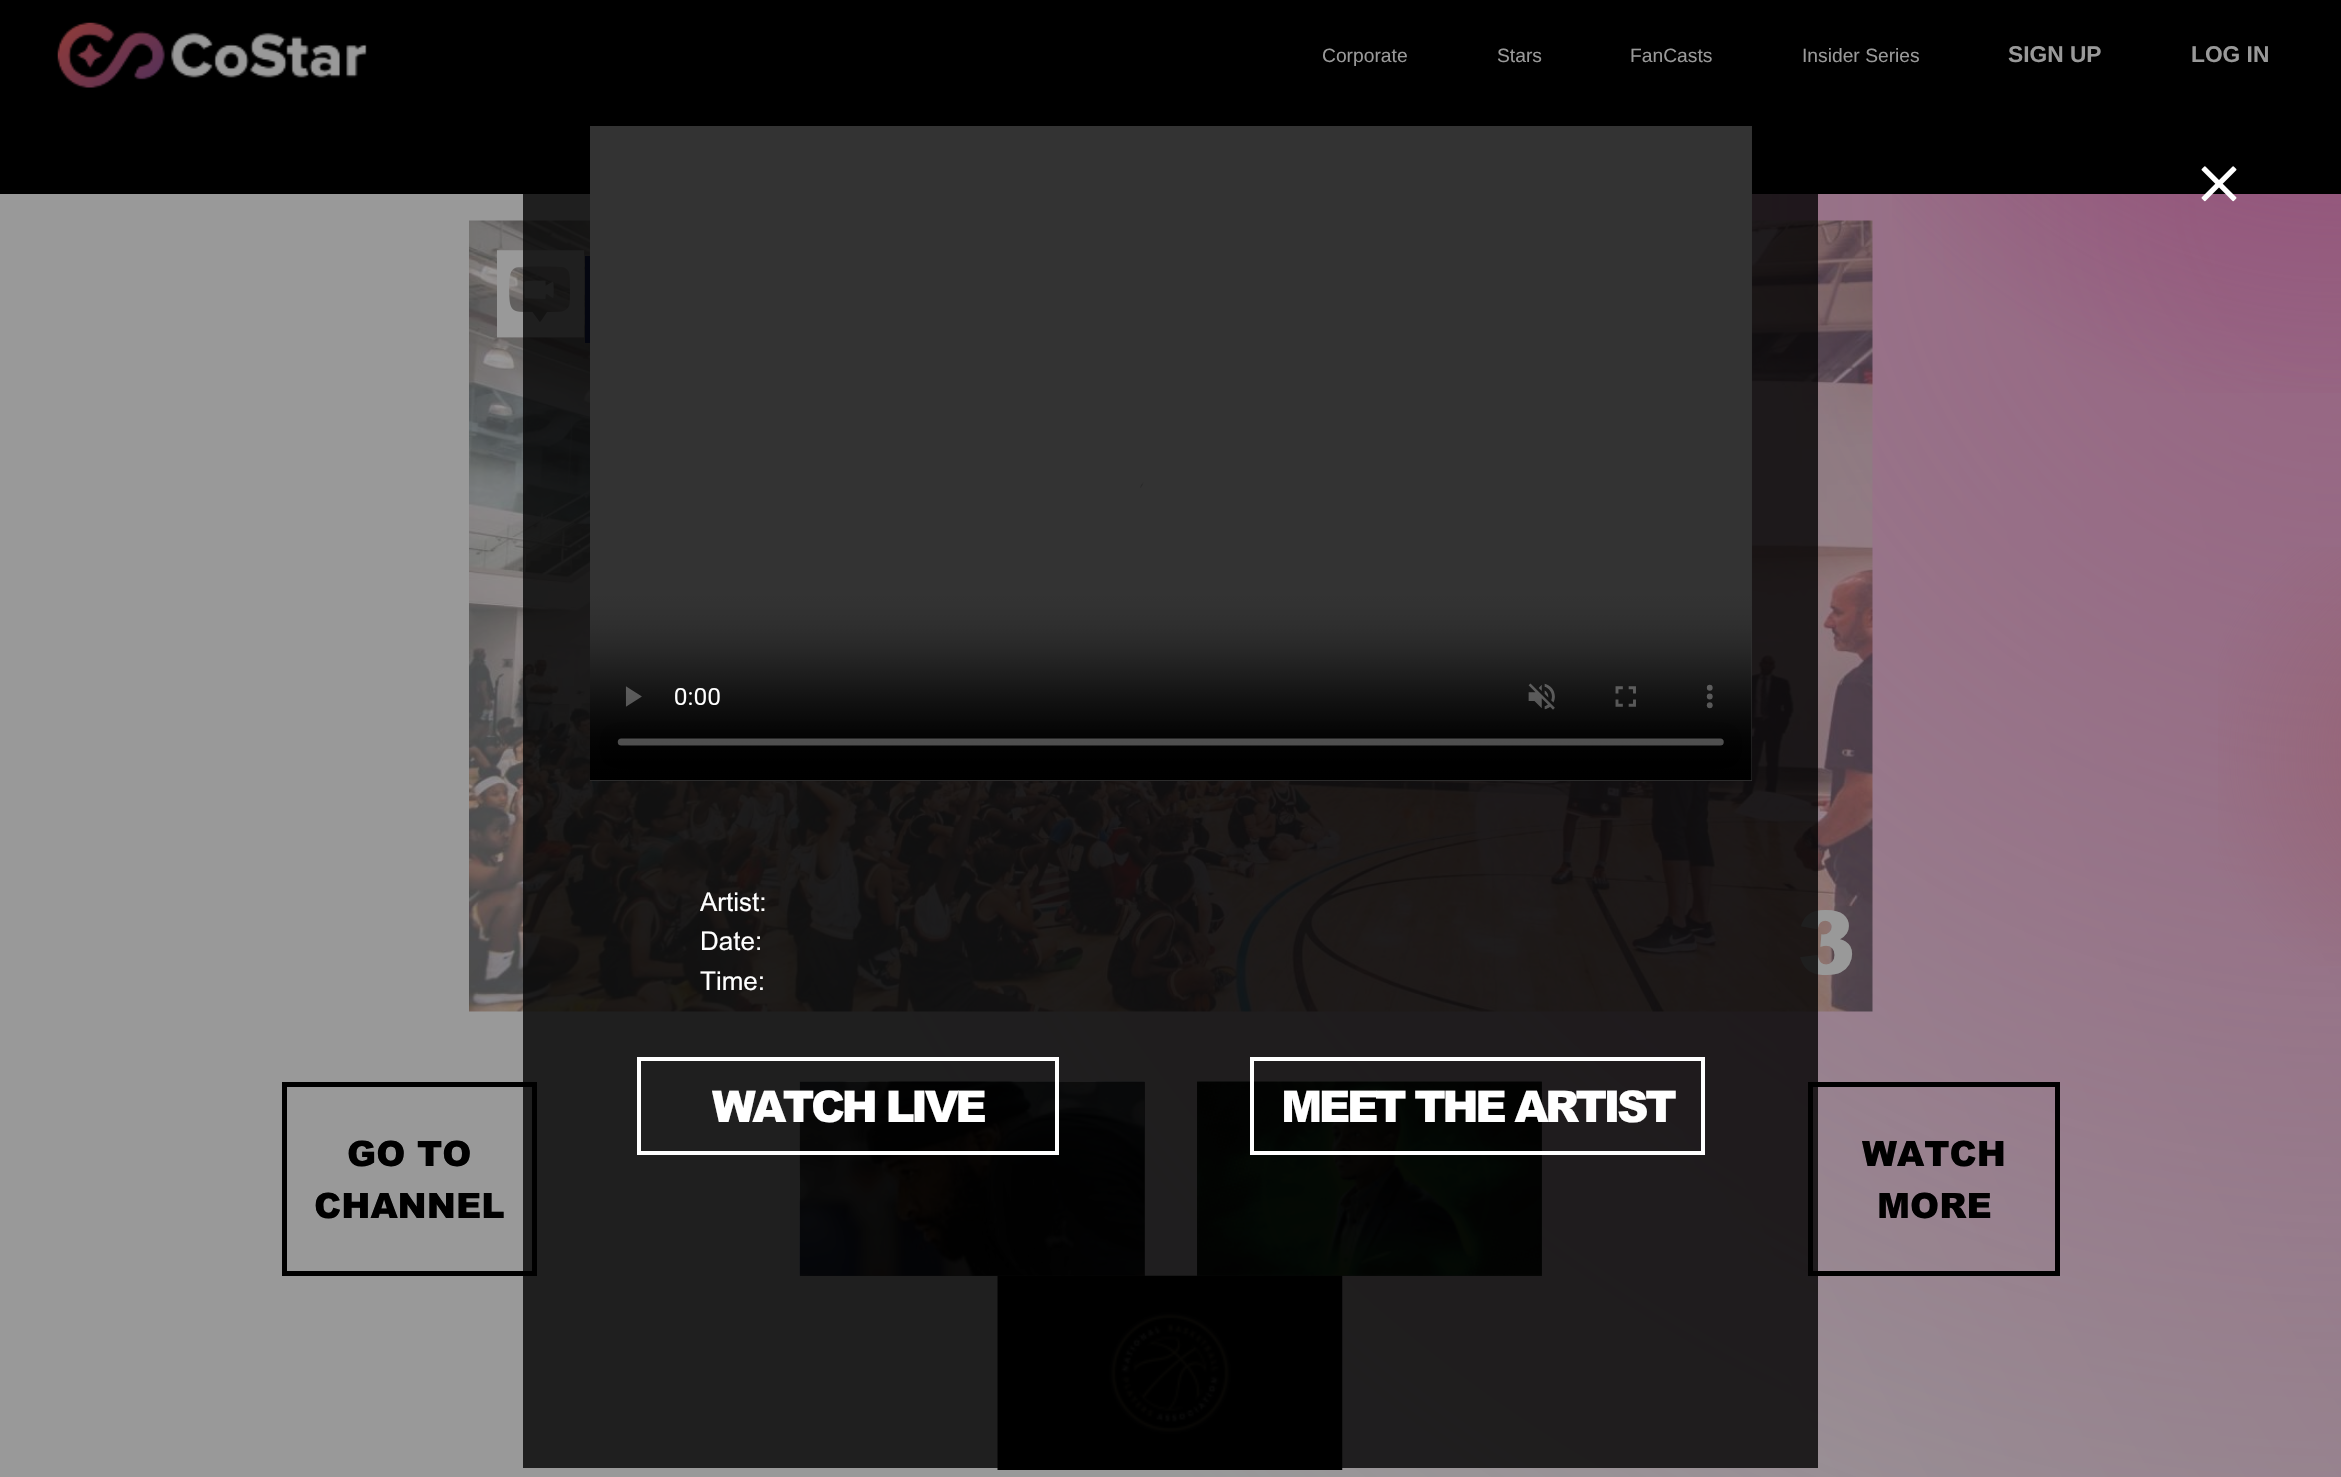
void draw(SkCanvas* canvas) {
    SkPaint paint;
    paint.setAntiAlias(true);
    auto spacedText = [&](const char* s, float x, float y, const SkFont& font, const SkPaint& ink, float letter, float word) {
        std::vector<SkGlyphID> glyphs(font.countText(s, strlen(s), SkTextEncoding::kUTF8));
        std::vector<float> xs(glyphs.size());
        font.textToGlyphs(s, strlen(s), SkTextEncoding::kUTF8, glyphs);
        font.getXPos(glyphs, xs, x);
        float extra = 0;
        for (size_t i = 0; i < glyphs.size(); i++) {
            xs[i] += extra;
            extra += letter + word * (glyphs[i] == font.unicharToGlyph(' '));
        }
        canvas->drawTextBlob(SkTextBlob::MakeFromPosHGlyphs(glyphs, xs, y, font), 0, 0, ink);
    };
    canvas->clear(0xFF000000);
    canvas->drawImageRect(SkImages::DeferredFromEncodedData(SkData::MakeFromFileName("img1.png")), SkRect::MakeXYWH(57, 22, 310, 66), SkSamplingOptions());
    SkFont font1(fontMgr->matchFamilyStyle("Liberation Sans", SkFontStyle::Normal()), 19.25f);
    font1.setSubpixel(true);
    paint.setColor(0xFF999999);
    canvas->drawString("Corporate", 1322, 62, font1, paint);
    canvas->drawString("Stars", 1497, 62, font1, paint);
    canvas->drawString("FanCasts", 1630, 62, font1, paint);
    canvas->drawString("Insider Series", 1802, 62, font1, paint);
    SkFont font2(fontMgr->matchFamilyStyle("Liberation Sans", SkFontStyle::Bold()), 22.75f);
    font2.setSubpixel(true);
    canvas->drawString("SIGN UP", 2008, 62, font2, paint);
    canvas->drawString("LOG IN", 2191, 62, font2, paint);
    {
        const SkColor colors[] = {0xFF947A8A, 0xFF927686, 0xFF999999, 0xFF999999};
        const float stops[] = {0, 0.3f, 0.6f, 1};
        paint.setShader(SkGradientShader::MakeRadial({4215, 194}, 4533, colors, stops, 4, SkTileMode::kClamp));
        paint.setAlpha(255);
    }
    canvas->drawRect(SkRect::MakeXYWH(0, 194, 2341, 1283), paint);
    {
        const SkColor colors[] = {0xD9976181, 0x00976181};
        const float stops[] = {0.05f, 0.6f};
        paint.setShader(SkGradientShader::MakeRadial({2342, 194}, 2875, colors, stops, 2, SkTileMode::kClamp));
        paint.setAlpha(255);
    }
    canvas->drawRect(SkRect::MakeXYWH(766, 194, 1575, 1283), paint);
    {
        const SkColor colors[] = {0xD98E386E, 0x008E386E};
        const float stops[] = {0, 0.2f};
        paint.setShader(SkGradientShader::MakeRadial({2342, -191}, 3114, colors, stops, 2, SkTileMode::kClamp));
        paint.setAlpha(255);
    }
    canvas->drawRect(SkRect::MakeXYWH(1892, 194, 449, 199), paint);
    canvas->drawImageRect(SkImages::DeferredFromEncodedData(SkData::MakeFromFileName("img2.png")), SkRect::MakeXYWH(2201, 166, 36, 36), SkSamplingOptions());
    canvas->drawImageRect(SkImages::DeferredFromEncodedData(SkData::MakeFromFileName("img4.png")), SkRect::MakeXYWH(469, 220, 1404, 792), SkSamplingOptions());
    canvas->drawImageRect(SkImages::DeferredFromEncodedData(SkData::MakeFromFileName("img5.png")), SkRect::MakeXYWH(497, 250, 88, 88), SkSamplingOptions());
    paint.setShader(nullptr);
    paint.setColor(0xFF101D50);
    canvas->drawRect(SkRect::MakeXYWH(585, 256, 5, 87), paint);
    SkFont font3(fontMgr->matchFamilyStyle("Arial", SkFontStyle(900, SkFontStyle::kNormal_Width, SkFontStyle::kUpright_Slant)), 88);
    font3.setSubpixel(true);
    paint.setColor(0xFF999999);
    canvas->drawString("3", 1797, 974, font3, paint);
    paint.setStyle(SkPaint::kStroke_Style);
    paint.setStrokeWidth(5);
    paint.setColor(0xFF000000);
    canvas->drawRect(SkRect::MakeXYWH(284.5f, 1084.5f, 250, 189), paint);
    canvas->drawImageRect(SkImages::DeferredFromEncodedData(SkData::MakeFromFileName("img6.png")), SkRect::MakeXYWH(799, 1081, 346, 195), SkSamplingOptions());
    paint.setStyle(SkPaint::kFill_Style);
    paint.setColor(0x99000000);
    canvas->drawRect(SkRect::MakeXYWH(800, 1082, 345, 194), paint);
    canvas->drawImageRect(SkImages::DeferredFromEncodedData(SkData::MakeFromFileName("img7.png")), SkRect::MakeXYWH(1197, 1081, 345, 195), SkSamplingOptions());
    canvas->drawRect(SkRect::MakeXYWH(1197, 1082, 345, 194), paint);
    canvas->drawImageRect(SkImages::DeferredFromEncodedData(SkData::MakeFromFileName("img8.png")), SkRect::MakeXYWH(997, 1275, 346, 195), SkSamplingOptions());
    paint.setStyle(SkPaint::kStroke_Style);
    paint.setColor(0xFF000000);
    canvas->drawRect(SkRect::MakeXYWH(1810.5f, 1084.5f, 247, 189), paint);
    paint.setStyle(SkPaint::kFill_Style);
    paint.setColor(0xCC000000);
    canvas->drawRect(SkRect::MakeXYWH(523, 194, 1295, 1274), paint);
    canvas->drawImageRect(SkImages::DeferredFromEncodedData(SkData::MakeFromFileName("img3.png")), SkRect::MakeXYWH(590, 126, 1162, 655), SkSamplingOptions());
    SkFont font4(fontMgr->matchFamilyStyle("Arial", SkFontStyle::Normal()), 26);
    font4.setSubpixel(true);
    paint.setColor(0xFFFFFFFF);
    canvas->drawString("Artist:", 700, 911, font4, paint);
    canvas->drawString("Date:", 700, 950, font4, paint);
    canvas->drawString("Time:", 700, 990, font4, paint);
    paint.setStyle(SkPaint::kStroke_Style);
    paint.setStrokeWidth(4);
    canvas->drawRect(SkRect::MakeXYWH(639, 1059, 418, 94), paint);
    SkFont font5(fontMgr->matchFamilyStyle("Arial", SkFontStyle(900, SkFontStyle::kNormal_Width, SkFontStyle::kUpright_Slant)), 43.75f);
    font5.setSubpixel(true);
    paint.setStyle(SkPaint::kFill_Style);
    spacedText("WATCH LIVE", 712, 1122, font5, paint, -3.5f, 0);
    paint.setStyle(SkPaint::kStroke_Style);
    canvas->drawRect(SkRect::MakeXYWH(1252, 1059, 451, 94), paint);
    paint.setStyle(SkPaint::kFill_Style);
    spacedText("MEET THE ARTIST", 1281, 1122, font5, paint, -3.5f, 0);
    {
        const SkColor colors[] = {0xFF966173, 0x00966173};
        const float stops[] = {0, 0.1f};
        paint.setShader(SkGradientShader::MakeRadial({2459, 754}, 2697, colors, stops, 2, SkTileMode::kClamp));
        paint.setAlpha(255);
    }
    canvas->drawRect(SkRect::MakeXYWH(2218, 547, 123, 419), paint);
    SkFont font6(fontMgr->matchFamilyStyle("Arial", SkFontStyle(900, SkFontStyle::kNormal_Width, SkFontStyle::kUpright_Slant)), 35);
    font6.setSubpixel(true);
    paint.setShader(nullptr);
    paint.setColor(0xFF000000);
    canvas->drawString("GO TO", 347, 1166, font6, paint);
    canvas->drawString("CHANNEL", 314, 1218, font6, paint);
    canvas->drawString("WATCH", 1862, 1166, font6, paint);
    canvas->drawString("MORE", 1877, 1218, font6, paint);
}
